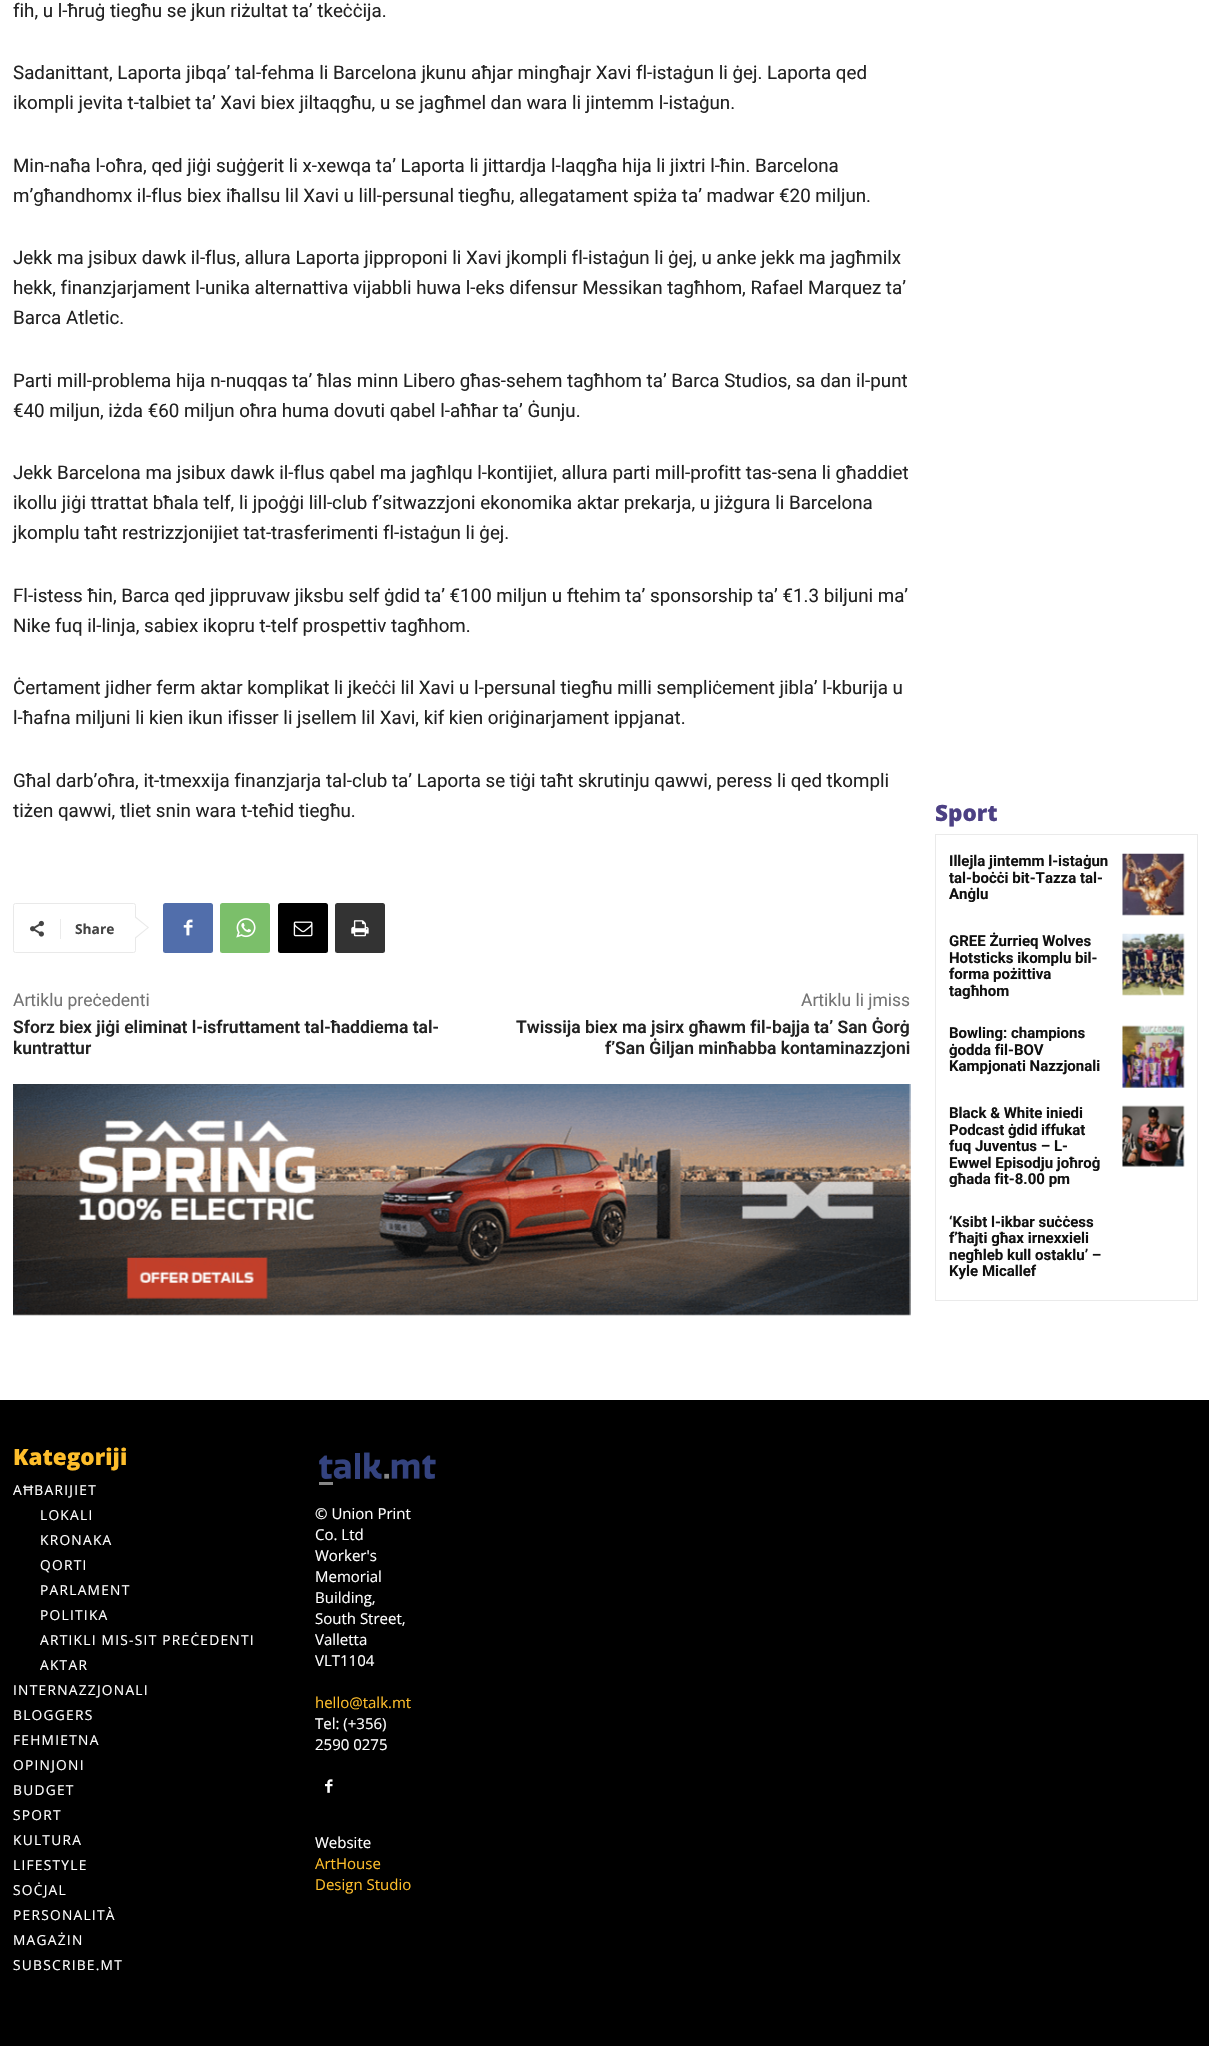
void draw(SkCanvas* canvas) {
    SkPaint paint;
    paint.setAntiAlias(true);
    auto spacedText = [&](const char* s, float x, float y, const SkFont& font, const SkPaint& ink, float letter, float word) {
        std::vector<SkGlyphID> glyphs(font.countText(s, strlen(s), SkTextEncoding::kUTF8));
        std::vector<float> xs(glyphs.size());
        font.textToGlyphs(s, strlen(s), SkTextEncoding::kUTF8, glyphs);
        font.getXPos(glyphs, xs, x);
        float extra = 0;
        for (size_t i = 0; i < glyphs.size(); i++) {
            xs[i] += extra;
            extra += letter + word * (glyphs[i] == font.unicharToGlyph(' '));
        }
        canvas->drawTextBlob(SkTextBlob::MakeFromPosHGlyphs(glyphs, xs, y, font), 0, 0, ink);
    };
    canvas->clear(0xFFFFFFFF);
    SkFont font1(fontMgr->matchFamilyStyle("Roboto", SkFontStyle::Normal()), 18.75f);
    font1.setSubpixel(true);
    paint.setColor(0xFF222222);
    canvas->drawString("fih, u l-ħruġ tiegħu se jkun riżultat ta’ tkeċċija.", 13, 17, font1, paint);
    canvas->drawString("Sadanittant, Laporta jibqa’ tal-fehma li Barcelona jkunu aħjar mingħajr Xavi fl-istaġun li ġej. Laporta qed", 13, 79, font1, paint);
    canvas->drawString("ikompli jevita t-talbiet ta’ Xavi biex jiltaqgħu, u se jagħmel dan wara li jintemm l-istaġun.", 13, 109, font1, paint);
    canvas->drawString("Min-naħa l-oħra, qed jiġi suġġerit li x-xewqa ta’ Laporta li jittardja l-laqgħa hija li jixtri l-ħin. Barcelona", 13, 172, font1, paint);
    canvas->drawString("m’għandhomx il-flus biex iħallsu lil Xavi u lill-persunal tiegħu, allegatament spiża ta’ madwar €20 miljun.", 13, 202, font1, paint);
    canvas->drawString("Jekk ma jsibux dawk il-flus, allura Laporta jipproponi li Xavi jkompli fl-istaġun li ġej, u anke jekk ma jagħmilx", 13, 264, font1, paint);
    canvas->drawString("hekk, finanzjarjament l-unika alternattiva vijabbli huwa l-eks difensur Messikan tagħhom, Rafael Marquez ta’", 13, 294, font1, paint);
    canvas->drawString("Barca Atletic.", 13, 324, font1, paint);
    canvas->drawString("Parti mill-problema hija n-nuqqas ta’ ħlas minn Libero għas-sehem tagħhom ta’ Barca Studios, sa dan il-punt", 13, 387, font1, paint);
    canvas->drawString("€40 miljun, iżda €60 miljun oħra huma dovuti qabel l-aħħar ta’ Ġunju.", 13, 417, font1, paint);
    canvas->drawString("Jekk Barcelona ma jsibux dawk il-flus qabel ma jagħlqu l-kontijiet, allura parti mill-profitt tas-sena li għaddiet", 13, 479, font1, paint);
    canvas->drawString("ikollu jiġi ttrattat bħala telf, li jpoġġi lill-club f’sitwazzjoni ekonomika aktar prekarja, u jiżgura li Barcelona", 13, 509, font1, paint);
    canvas->drawString("jkomplu taħt restrizzjonijiet tat-trasferimenti fl-istaġun li ġej.", 13, 539, font1, paint);
    canvas->drawString("Fl-istess ħin, Barca qed jippruvaw jiksbu self ġdid ta’ €100 miljun u ftehim ta’ sponsorship ta’ €1.3 biljuni ma’", 13, 602, font1, paint);
    canvas->drawString("Nike fuq il-linja, sabiex ikopru t-telf prospettiv tagħhom.", 13, 632, font1, paint);
    canvas->drawString("Ċertament jidher ferm aktar komplikat li jkeċċi lil Xavi u l-persunal tiegħu milli sempliċement jibla’ l-kburija u", 13, 694, font1, paint);
    canvas->drawString("l-ħafna miljuni li kien ikun ifisser li jsellem lil Xavi, kif kien oriġinarjament ippjanat.", 13, 724, font1, paint);
    canvas->drawString("Għal darb’oħra, it-tmexxija finanzjarja tal-club ta’ Laporta se tiġi taħt skrutinju qawwi, peress li qed tkompli", 13, 787, font1, paint);
    canvas->drawString("tiżen qawwi, tliet snin wara t-teħid tiegħu.", 13, 817, font1, paint);
    paint.setStyle(SkPaint::kStroke_Style);
    paint.setStrokeWidth(1);
    paint.setColor(0xFFE9E9E9);
    canvas->drawRoundRect(SkRect::MakeXYWH(13.5f, 903.5f, 122, 49), 2, 2, paint);
    paint.setStyle(SkPaint::kFill_Style);
    canvas->drawPath(SkPathBuilder().moveTo(135, 939).lineTo(135, 916).lineTo(149, 927.5f).close().detach(), paint);
    canvas->drawImageRect(SkImages::DeferredFromEncodedData(SkData::MakeFromFileName("img1.png")), SkRect::MakeXYWH(30, 920, 14, 17), SkSamplingOptions());
    paint.setColor(0xFFEBEBEB);
    canvas->drawRect(SkRect::MakeXYWH(60, 919, 1, 20), paint);
    SkFont font2(fontMgr->matchFamilyStyle("Open Sans", SkFontStyle::Bold()), 13.75f);
    font2.setSubpixel(true);
    paint.setColor(0xFF444444);
    canvas->drawString("Share", 75, 934, font2, paint);
    paint.setColor(0xFFFFFFFF);
    canvas->drawPath(SkPathBuilder().moveTo(135, 937.5f).lineTo(135, 917.5f).lineTo(147.5f, 927.5f).close().detach(), paint);
    paint.setColor(0xFF516EAB);
    canvas->drawRoundRect(SkRect::MakeXYWH(163, 903, 50, 50), 2.5f, 2.5f, paint);
    canvas->drawImageRect(SkImages::DeferredFromEncodedData(SkData::MakeFromFileName("img2.png")), SkRect::MakeXYWH(183, 919, 10, 17), SkSamplingOptions());
    paint.setColor(0xFF7BBF6A);
    canvas->drawRoundRect(SkRect::MakeXYWH(220, 903, 50, 50), 2.5f, 2.5f, paint);
    canvas->drawImageRect(SkImages::DeferredFromEncodedData(SkData::MakeFromFileName("img3.png")), SkRect::MakeXYWH(236, 918, 20, 20), SkSamplingOptions());
    paint.setColor(0xFF000000);
    canvas->drawRoundRect(SkRect::MakeXYWH(278, 903, 50, 50), 2.5f, 2.5f, paint);
    canvas->drawImageRect(SkImages::DeferredFromEncodedData(SkData::MakeFromFileName("img4.png")), SkRect::MakeXYWH(293, 921, 20, 16), SkSamplingOptions());
    paint.setColor(0xFF333333);
    canvas->drawRoundRect(SkRect::MakeXYWH(335, 903, 50, 50), 2.5f, 2.5f, paint);
    canvas->drawImageRect(SkImages::DeferredFromEncodedData(SkData::MakeFromFileName("img5.png")), SkRect::MakeXYWH(351, 920, 18, 17), SkSamplingOptions());
    SkFont font3(fontMgr->matchFamilyStyle("Roboto", SkFontStyle::Normal()), 17.5f);
    font3.setSubpixel(true);
    paint.setColor(0xFF747474);
    canvas->drawString("Artiklu preċedenti", 13, 1006, font3, paint);
    SkFont font4(fontMgr->matchFamilyStyle("Roboto", SkFontStyle(600, SkFontStyle::kNormal_Width, SkFontStyle::kUpright_Slant)), 17.5f);
    font4.setSubpixel(true);
    paint.setColor(0xFF222222);
    canvas->drawString("Sforz biex jiġi eliminat l-isfruttament tal-ħaddiema tal-", 13, 1033, font4, paint);
    canvas->drawString("kuntrattur", 13, 1054, font4, paint);
    paint.setColor(0xFF747474);
    canvas->drawString("Artiklu li jmiss", 801, 1006, font3, paint);
    paint.setColor(0xFF222222);
    canvas->drawString("Twissija biex ma jsirx għawm fil-bajja ta’ San Ġorġ", 516, 1033, font4, paint);
    canvas->drawString("f’San Ġiljan minħabba kontaminazzjoni", 605, 1054, font4, paint);
    canvas->drawImageRect(SkImages::DeferredFromEncodedData(SkData::MakeFromFileName("img6.png")), SkRect::MakeXYWH(13, 1084, 898, 232), SkSamplingOptions());
    SkFont font5(fontMgr->matchFamilyStyle("Open Sans", SkFontStyle(800, SkFontStyle::kNormal_Width, SkFontStyle::kUpright_Slant)), 22.5f);
    font5.setSubpixel(true);
    paint.setColor(0xFF4C4084);
    canvas->drawString("Sport", 935, 821, font5, paint);
    paint.setStyle(SkPaint::kStroke_Style);
    paint.setColor(0xFFEAEAEA);
    canvas->drawRect(SkRect::MakeXYWH(935.5f, 834.5f, 262, 466), paint);
    SkFont font6(fontMgr->matchFamilyStyle("Roboto", SkFontStyle::Bold()), 15);
    font6.setSubpixel(true);
    paint.setStyle(SkPaint::kFill_Style);
    paint.setColor(0xFF111111);
    canvas->drawString("Illejla jintemm l-istaġun", 949, 866, font6, paint);
    canvas->drawString("tal-boċċi bit-Tazza tal-", 949, 883, font6, paint);
    canvas->drawString("Anġlu", 949, 899, font6, paint);
    canvas->drawImageRect(SkImages::DeferredFromEncodedData(SkData::MakeFromFileName("img7.png")), SkRect::MakeXYWH(1122, 853, 63, 63), SkSamplingOptions());
    canvas->drawString("GREE Żurrieq Wolves", 949, 946, font6, paint);
    canvas->drawString("Hotsticks ikomplu bil-", 949, 963, font6, paint);
    canvas->drawString("forma pożittiva", 949, 979, font6, paint);
    canvas->drawString("tagħhom", 949, 996, font6, paint);
    canvas->drawImageRect(SkImages::DeferredFromEncodedData(SkData::MakeFromFileName("img8.png")), SkRect::MakeXYWH(1122, 933, 63, 63), SkSamplingOptions());
    canvas->drawString("Bowling: champions", 949, 1038, font6, paint);
    canvas->drawString("ġodda fil-BOV", 949, 1055, font6, paint);
    canvas->drawString("Kampjonati Nazzjonali", 949, 1071, font6, paint);
    canvas->drawImageRect(SkImages::DeferredFromEncodedData(SkData::MakeFromFileName("img9.png")), SkRect::MakeXYWH(1122, 1025, 63, 63), SkSamplingOptions());
    canvas->drawString("Black & White iniedi", 949, 1118, font6, paint);
    canvas->drawString("Podcast ġdid iffukat", 949, 1135, font6, paint);
    canvas->drawString("fuq Juventus – L-", 949, 1151, font6, paint);
    canvas->drawString("Ewwel Episodju joħroġ", 949, 1168, font6, paint);
    canvas->drawString("għada fit-8.00 pm", 949, 1184, font6, paint);
    canvas->drawImageRect(SkImages::DeferredFromEncodedData(SkData::MakeFromFileName("img10.png")), SkRect::MakeXYWH(1122, 1105, 63, 62), SkSamplingOptions());
    canvas->drawString("‘Ksibt l-ikbar suċċess", 949, 1227, font6, paint);
    canvas->drawString("f’ħajti għax irnexxieli", 949, 1243, font6, paint);
    canvas->drawString("negħleb kull ostaklu’ –", 949, 1260, font6, paint);
    canvas->drawString("Kyle Micallef", 949, 1276, font6, paint);
    paint.setColor(0xFF000000);
    canvas->drawRect(SkRect::MakeXYWH(0, 1400, 1209, 646), paint);
    paint.setColor(0xFFFEBE2B);
    canvas->drawString("Kategoriji", 13, 1465, font5, paint);
    SkFont font7(fontMgr->matchFamilyStyle("Open Sans", SkFontStyle::Normal()), 13.75f);
    font7.setSubpixel(true);
    paint.setColor(0xFFFFFFFF);
    spacedText("AĦBARIJIET", 13, 1495, font7, paint, 1.25f, 0);
    spacedText("LOKALI", 40, 1520, font7, paint, 1.25f, 0);
    spacedText("KRONAKA", 40, 1545, font7, paint, 1.25f, 0);
    spacedText("QORTI", 40, 1570, font7, paint, 1.25f, 0);
    spacedText("PARLAMENT", 40, 1595, font7, paint, 1.25f, 0);
    spacedText("POLITIKA", 40, 1620, font7, paint, 1.25f, 0);
    spacedText("ARTIKLI MIS-SIT PREĊEDENTI", 40, 1645, font7, paint, 1.25f, 0);
    spacedText("AKTAR", 40, 1670, font7, paint, 1.25f, 0);
    spacedText("INTERNAZZJONALI", 13, 1695, font7, paint, 1.25f, 0);
    spacedText("BLOGGERS", 13, 1720, font7, paint, 1.25f, 0);
    spacedText("FEHMIETNA", 13, 1745, font7, paint, 1.25f, 0);
    spacedText("OPINJONI", 13, 1770, font7, paint, 1.25f, 0);
    spacedText("BUDGET", 13, 1795, font7, paint, 1.25f, 0);
    spacedText("SPORT", 13, 1820, font7, paint, 1.25f, 0);
    spacedText("KULTURA", 13, 1845, font7, paint, 1.25f, 0);
    spacedText("LIFESTYLE", 13, 1870, font7, paint, 1.25f, 0);
    spacedText("SOĊJAL", 13, 1895, font7, paint, 1.25f, 0);
    spacedText("PERSONALITÀ", 13, 1920, font7, paint, 1.25f, 0);
    spacedText("MAGAŻIN", 13, 1945, font7, paint, 1.25f, 0);
    spacedText("SUBSCRIBE.MT", 13, 1970, font7, paint, 1.25f, 0);
    canvas->drawImageRect(SkImages::DeferredFromEncodedData(SkData::MakeFromFileName("img11.png")), SkRect::MakeXYWH(319, 1452, 117, 33), SkSamplingOptions());
    SkFont font8(fontMgr->matchFamilyStyle("Open Sans", SkFontStyle::Normal()), 15);
    font8.setSubpixel(true);
    canvas->drawString("© Union Print", 315, 1519, font8, paint);
    canvas->drawString("Co. Ltd", 315, 1540, font8, paint);
    canvas->drawString("Worker's", 315, 1561, font8, paint);
    canvas->drawString("Memorial", 315, 1582, font8, paint);
    canvas->drawString("Building,", 315, 1603, font8, paint);
    canvas->drawString("South Street,", 315, 1624, font8, paint);
    canvas->drawString("Valletta", 315, 1645, font8, paint);
    canvas->drawString("VLT1104", 315, 1666, font8, paint);
    paint.setColor(0xFFFEBE2B);
    canvas->drawString("hello@talk.mt", 315, 1708, font8, paint);
    paint.setColor(0xFFFFFFFF);
    canvas->drawString("Tel: (+356)", 315, 1729, font8, paint);
    canvas->drawString("2590 0275", 315, 1750, font8, paint);
    canvas->drawImageRect(SkImages::DeferredFromEncodedData(SkData::MakeFromFileName("img12.png")), SkRect::MakeXYWH(325, 1779, 8, 14), SkSamplingOptions());
    canvas->drawString("Website", 315, 1848, font8, paint);
    paint.setColor(0xFFFEBE2B);
    canvas->drawString("ArtHouse", 315, 1869, font8, paint);
    canvas->drawString("Design Studio", 315, 1890, font8, paint);
}
